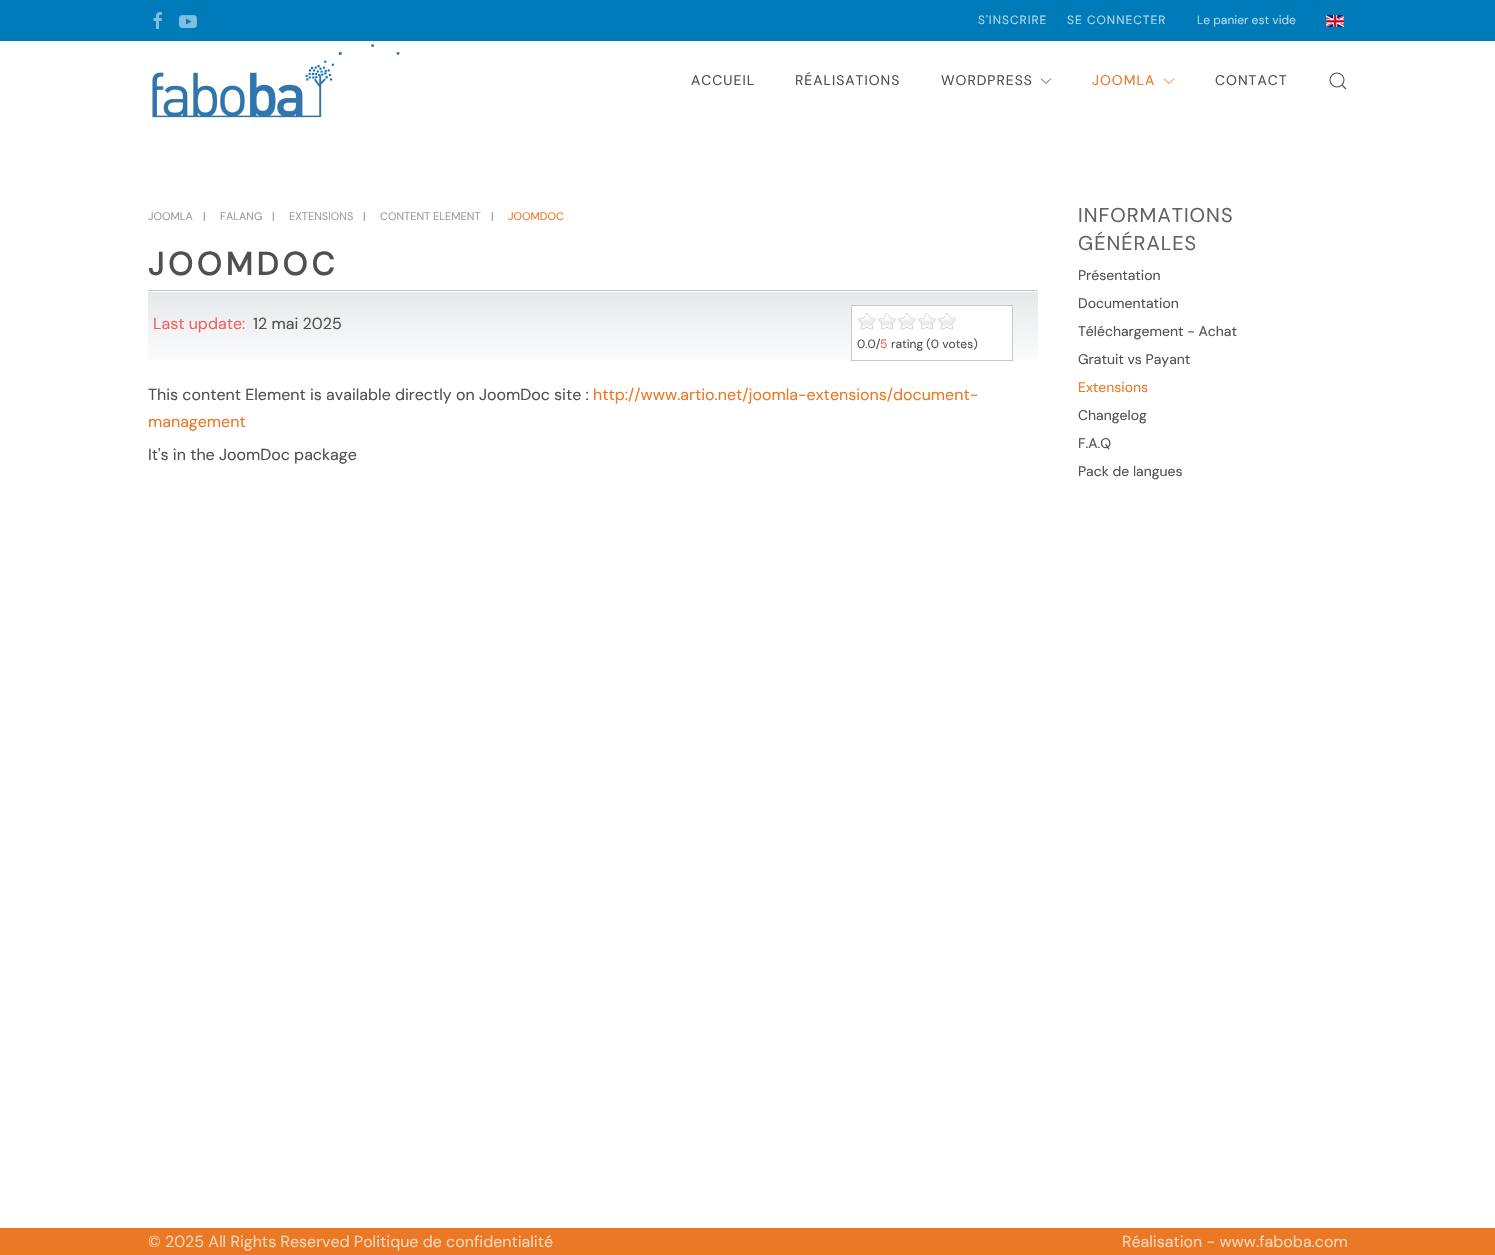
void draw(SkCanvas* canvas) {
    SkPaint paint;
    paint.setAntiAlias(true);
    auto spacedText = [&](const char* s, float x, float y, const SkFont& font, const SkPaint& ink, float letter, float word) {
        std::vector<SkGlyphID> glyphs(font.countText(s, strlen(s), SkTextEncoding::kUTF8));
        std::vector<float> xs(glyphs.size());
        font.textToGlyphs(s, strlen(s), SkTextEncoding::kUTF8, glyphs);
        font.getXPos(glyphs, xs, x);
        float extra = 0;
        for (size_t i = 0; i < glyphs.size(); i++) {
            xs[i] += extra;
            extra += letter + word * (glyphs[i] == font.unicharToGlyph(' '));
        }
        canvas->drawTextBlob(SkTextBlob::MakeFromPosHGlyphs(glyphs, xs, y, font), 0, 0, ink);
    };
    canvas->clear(0xFFFFFFFF);
    paint.setColor(0xFF007BBA);
    canvas->drawRect(SkRect::MakeXYWH(0, 0, 1495, 41), paint);
    canvas->drawImageRect(SkImages::DeferredFromEncodedData(SkData::MakeFromFileName("img1.png")), SkRect::MakeXYWH(153, 12, 9, 17), SkSamplingOptions());
    canvas->drawImageRect(SkImages::DeferredFromEncodedData(SkData::MakeFromFileName("img2.png")), SkRect::MakeXYWH(179, 15, 18, 14), SkSamplingOptions());
    SkFont font1(fontMgr->matchFamilyStyle("DM Sans", SkFontStyle::Normal()), 12);
    font1.setSubpixel(true);
    paint.setColor(0xFFB3D7EA);
    spacedText("S'INSCRIRE", 978, 24, font1, paint, 1, 0);
    spacedText("SE CONNECTER", 1067, 24, font1, paint, 1, 0);
    canvas->drawString("Le panier est vide", 1197, 24, font1, paint);
    canvas->drawImageRect(SkImages::DeferredFromEncodedData(SkData::MakeFromFileName("img3.png")), SkRect::MakeXYWH(1326, 15, 18, 12), SkSamplingOptions());
    canvas->drawImageRect(SkImages::DeferredFromEncodedData(SkData::MakeFromFileName("img4.png")), SkRect::MakeXYWH(152, 44, 248, 74), SkSamplingOptions());
    SkFont font2(fontMgr->matchFamilyStyle("DM Sans", SkFontStyle::Normal()), 14);
    font2.setSubpixel(true);
    paint.setColor(0xFF505050);
    spacedText("ACCUEIL", 691, 85, font2, paint, 1, 0);
    spacedText("RÉALISATIONS", 795, 85, font2, paint, 1, 0);
    spacedText("WORDPRESS", 941, 85, font2, paint, 1, 0);
    paint.setStyle(SkPaint::kStroke_Style);
    paint.setStrokeWidth(1);
    paint.setColor(0xFF524F4F);
    canvas->drawPath(SkPathBuilder().moveTo(1041, 78.5f).lineTo(1046, 83.5f).lineTo(1051, 78.5f).detach(), paint);
    paint.setStyle(SkPaint::kFill_Style);
    paint.setColor(0xFFEA7824);
    spacedText("JOOMLA", 1092, 85, font2, paint, 1, 0);
    paint.setStyle(SkPaint::kStroke_Style);
    canvas->drawPath(SkPathBuilder().moveTo(1164, 78.5f).lineTo(1169, 83.5f).lineTo(1174, 78.5f).detach(), paint);
    paint.setStyle(SkPaint::kFill_Style);
    paint.setColor(0xFF505050);
    spacedText("CONTACT", 1215, 85, font2, paint, 1, 0);
    paint.setStyle(SkPaint::kStroke_Style);
    paint.setStrokeWidth(1.1f);
    paint.setColor(0xFF524F4F);
    canvas->drawCircle(1337, 80, 7, paint);
    canvas->drawPath(SkPathBuilder().moveTo(1342, 85).lineTo(1346, 89).close().detach(), paint);
    SkFont font3(fontMgr->matchFamilyStyle("DM Sans", SkFontStyle::Normal()), 11);
    font3.setSubpixel(true);
    paint.setStyle(SkPaint::kFill_Style);
    paint.setColor(0xFF9F9B9B);
    canvas->drawString("JOOMLA", 148, 220, font3, paint);
    paint.setColor(0xFF919191);
    canvas->drawString("|", 203, 220, font3, paint);
    paint.setColor(0xFF9F9B9B);
    canvas->drawString("FALANG", 220, 220, font3, paint);
    paint.setColor(0xFF919191);
    canvas->drawString("|", 272, 220, font3, paint);
    paint.setColor(0xFF9F9B9B);
    canvas->drawString("EXTENSIONS", 289, 220, font3, paint);
    paint.setColor(0xFF919191);
    canvas->drawString("|", 363, 220, font3, paint);
    paint.setColor(0xFF9F9B9B);
    canvas->drawString("CONTENT ELEMENT", 380, 220, font3, paint);
    paint.setColor(0xFF919191);
    canvas->drawString("|", 491, 220, font3, paint);
    paint.setColor(0xFFEA7824);
    canvas->drawString("JOOMDOC", 508, 220, font3, paint);
    SkFont font4(fontMgr->matchFamilyStyle("DM Sans", SkFontStyle::Bold()), 32);
    font4.setSubpixel(true);
    paint.setColor(0xFF505050);
    spacedText("JOOMDOC", 148, 275, font4, paint, 4, 0);
    canvas->drawImageRect(SkImages::DeferredFromEncodedData(SkData::MakeFromFileName("img5.png")), SkRect::MakeXYWH(148, 290, 890, 71), SkSamplingOptions());
    SkFont font5(fontMgr->matchFamilyStyle("DM Sans", SkFontStyle::Normal()), 16);
    font5.setSubpixel(true);
    paint.setColor(0xFFF06161);
    canvas->drawString("Last update:", 153, 329, font5, paint);
    paint.setColor(0xFF505050);
    canvas->drawString("12 mai 2025", 253, 329, font5, paint);
    paint.setColor(0xFFFFFFFF);
    canvas->drawRect(SkRect::MakeXYWH(851.5f, 305.5f, 161, 55), paint);
    paint.setStyle(SkPaint::kStroke_Style);
    paint.setStrokeWidth(1);
    paint.setColor(0xFFC8C8C8);
    canvas->drawRect(SkRect::MakeXYWH(851.5f, 305.5f, 161, 55), paint);
    canvas->drawImageRect(SkImages::DeferredFromEncodedData(SkData::MakeFromFileName("img6.png")), SkRect::MakeXYWH(858, 313, 98, 17), SkSamplingOptions());
    paint.setStyle(SkPaint::kFill_Style);
    paint.setColor(0xFF505050);
    canvas->drawString("0.0/", 857, 348, font1, paint);
    paint.setColor(0xFFF06161);
    canvas->drawString("5", 880, 348, font1, paint);
    paint.setColor(0xFF505050);
    canvas->drawString("rating (0 votes)", 891, 348, font1, paint);
    canvas->drawString("This content Element is available directly on JoomDoc site :", 148, 400, font5, paint);
    paint.setColor(0xFFEA7824);
    canvas->drawString("http://www.artio.net/joomla-extensions/document-", 593, 400, font5, paint);
    canvas->drawString("management", 148, 427, font5, paint);
    paint.setColor(0xFF505050);
    canvas->drawString("It's in the JoomDoc package", 148, 460, font5, paint);
    SkFont font6(fontMgr->matchFamilyStyle("DM Sans", SkFontStyle::Normal()), 20);
    font6.setSubpixel(true);
    paint.setColor(0xFF626262);
    spacedText("INFORMATIONS", 1078, 222, font6, paint, 1, 0);
    spacedText("GÉNÉRALES", 1078, 250, font6, paint, 1, 0);
    paint.setColor(0xFF505050);
    canvas->drawString("Présentation", 1078, 280, font2, paint);
    canvas->drawString("Documentation", 1078, 308, font2, paint);
    canvas->drawString("Téléchargement - Achat", 1078, 336, font2, paint);
    canvas->drawString("Gratuit vs Payant", 1078, 364, font2, paint);
    paint.setColor(0xFFEA7824);
    canvas->drawString("Extensions", 1078, 392, font2, paint);
    paint.setColor(0xFF505050);
    canvas->drawString("Changelog", 1078, 420, font2, paint);
    canvas->drawString("F.A.Q", 1078, 448, font2, paint);
    canvas->drawString("Pack de langues", 1078, 476, font2, paint);
    paint.setColor(0xFFEA7824);
    canvas->drawRect(SkRect::MakeXYWH(0, 1228, 1495, 27), paint);
    paint.setColor(0xFFF9D7BD);
    canvas->drawString("© 2025 All Rights Reserved Politique de confidentialité", 148, 1247, font5, paint);
    canvas->drawString("Réalisation - www.faboba.com", 1122, 1247, font5, paint);
}
